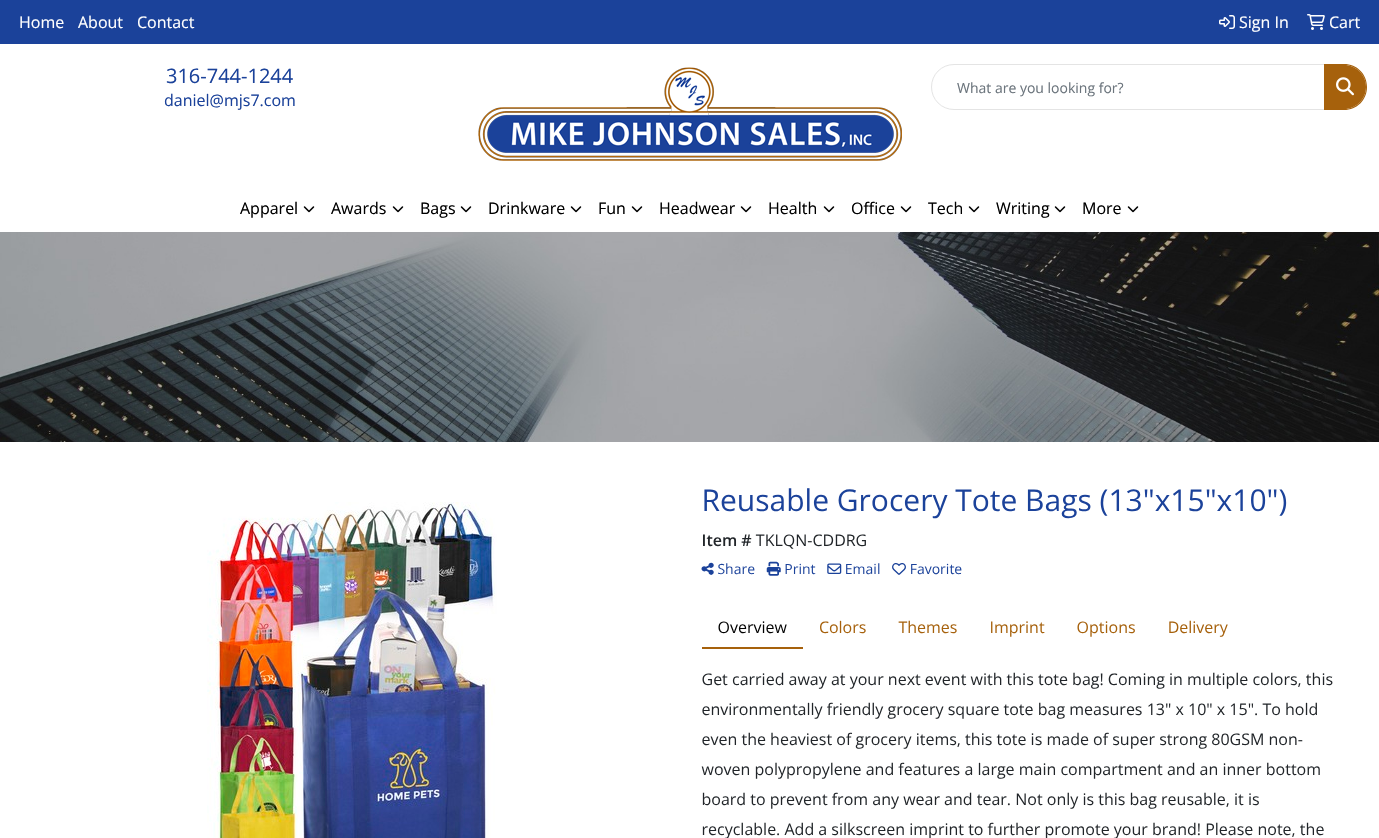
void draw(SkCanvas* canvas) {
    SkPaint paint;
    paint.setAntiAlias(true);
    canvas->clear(0xFFFFFFFF);
    paint.setColor(0xFF1B429A);
    canvas->drawRect(SkRect::MakeXYWH(0, 0, 1379, 44), paint);
    SkFont font1(fontMgr->matchFamilyStyle("Open Sans", SkFontStyle::Normal()), 16);
    font1.setSubpixel(true);
    paint.setColor(0xFFFFFFFF);
    canvas->drawString("Home", 19, 28, font1, paint);
    canvas->drawString("About", 78, 28, font1, paint);
    canvas->drawString("Contact", 137, 28, font1, paint);
    canvas->drawImageRect(SkImages::DeferredFromEncodedData(SkData::MakeFromFileName("img1.png")), SkRect::MakeXYWH(1219, 15, 16, 14), SkSamplingOptions());
    canvas->drawString("Sign In", 1239, 28, font1, paint);
    canvas->drawImageRect(SkImages::DeferredFromEncodedData(SkData::MakeFromFileName("img2.png")), SkRect::MakeXYWH(1307, 14, 18, 16), SkSamplingOptions());
    canvas->drawString("Cart", 1329, 28, font1, paint);
    SkFont font2(fontMgr->matchFamilyStyle("Open Sans", SkFontStyle::Normal()), 20);
    font2.setSubpixel(true);
    paint.setColor(0xFF1B429A);
    canvas->drawString("316-744-1244", 166, 83, font2, paint);
    canvas->drawString("daniel@mjs7.com", 164, 106, font1, paint);
    canvas->drawImageRect(SkImages::DeferredFromEncodedData(SkData::MakeFromFileName("img3.png")), SkRect::MakeXYWH(478, 67, 424, 94), SkSamplingOptions());
    paint.setStyle(SkPaint::kStroke_Style);
    paint.setStrokeWidth(1);
    paint.setColor(0xFFE4E4E4);
    canvas->drawPath(SkPathBuilder().moveTo(954, 64.5f).lineTo(1324.5f, 64.5f).lineTo(1324.5f, 109.5f).lineTo(954, 109.5f).cubicTo(941.5f, 109.5f, 931.5f, 99.5f, 931.5f, 87).cubicTo(931.5f, 74.5f, 941.5f, 64.5f, 954, 64.5f).close().detach(), paint);
    SkFont font3(fontMgr->matchFamilyStyle("Open Sans", SkFontStyle::Normal()), 14);
    font3.setSubpixel(true);
    paint.setStyle(SkPaint::kFill_Style);
    paint.setColor(0xFF6C757D);
    canvas->drawString("What are you looking for?", 957, 93, font3, paint);
    paint.setColor(0xFFA6610C);
    canvas->drawPath(SkPathBuilder().moveTo(1324, 65).lineTo(1344, 65).cubicTo(1356, 65, 1366, 75, 1366, 87).cubicTo(1366, 99, 1356, 109, 1344, 109).lineTo(1324, 109).close().detach(), paint);
    canvas->drawPath(SkPathBuilder(SkPathFillType::kEvenOdd).moveTo(1324, 64).lineTo(1344, 64).cubicTo(1357, 64, 1367, 74, 1367, 87).cubicTo(1367, 100, 1357, 110, 1344, 110).lineTo(1324, 110).close().moveTo(1324, 65).lineTo(1344, 65).cubicTo(1356, 65, 1366, 75, 1366, 87).cubicTo(1366, 99, 1356, 109, 1344, 109).lineTo(1324, 109).close().detach(), paint);
    canvas->drawImageRect(SkImages::DeferredFromEncodedData(SkData::MakeFromFileName("img4.png")), SkRect::MakeXYWH(1336, 77, 18, 19), SkSamplingOptions());
    paint.setColor(0xFF000000);
    canvas->drawString("Apparel", 240, 214, font1, paint);
    canvas->drawImageRect(SkImages::DeferredFromEncodedData(SkData::MakeFromFileName("img5.png")), SkRect::MakeXYWH(303, 206, 12, 7), SkSamplingOptions());
    canvas->drawString("Awards", 331, 214, font1, paint);
    canvas->drawImageRect(SkImages::DeferredFromEncodedData(SkData::MakeFromFileName("img5.png")), SkRect::MakeXYWH(392, 206, 12, 7), SkSamplingOptions());
    canvas->drawString("Bags", 420, 214, font1, paint);
    canvas->drawImageRect(SkImages::DeferredFromEncodedData(SkData::MakeFromFileName("img5.png")), SkRect::MakeXYWH(460, 206, 12, 7), SkSamplingOptions());
    canvas->drawString("Drinkware", 488, 214, font1, paint);
    canvas->drawImageRect(SkImages::DeferredFromEncodedData(SkData::MakeFromFileName("img5.png")), SkRect::MakeXYWH(570, 206, 12, 7), SkSamplingOptions());
    canvas->drawString("Fun", 598, 214, font1, paint);
    canvas->drawImageRect(SkImages::DeferredFromEncodedData(SkData::MakeFromFileName("img5.png")), SkRect::MakeXYWH(631, 206, 12, 7), SkSamplingOptions());
    canvas->drawString("Headwear", 659, 214, font1, paint);
    canvas->drawImageRect(SkImages::DeferredFromEncodedData(SkData::MakeFromFileName("img5.png")), SkRect::MakeXYWH(740, 206, 12, 7), SkSamplingOptions());
    canvas->drawString("Health", 768, 214, font1, paint);
    canvas->drawImageRect(SkImages::DeferredFromEncodedData(SkData::MakeFromFileName("img5.png")), SkRect::MakeXYWH(823, 206, 12, 7), SkSamplingOptions());
    canvas->drawString("Office", 851, 214, font1, paint);
    canvas->drawImageRect(SkImages::DeferredFromEncodedData(SkData::MakeFromFileName("img5.png")), SkRect::MakeXYWH(900, 206, 12, 7), SkSamplingOptions());
    canvas->drawString("Tech", 928, 214, font1, paint);
    canvas->drawImageRect(SkImages::DeferredFromEncodedData(SkData::MakeFromFileName("img5.png")), SkRect::MakeXYWH(968, 206, 12, 7), SkSamplingOptions());
    canvas->drawString("Writing", 996, 214, font1, paint);
    canvas->drawImageRect(SkImages::DeferredFromEncodedData(SkData::MakeFromFileName("img5.png")), SkRect::MakeXYWH(1054, 206, 12, 7), SkSamplingOptions());
    canvas->drawString("More", 1082, 214, font1, paint);
    canvas->drawImageRect(SkImages::DeferredFromEncodedData(SkData::MakeFromFileName("img5.png")), SkRect::MakeXYWH(1127, 206, 12, 7), SkSamplingOptions());
    canvas->drawImageRect(SkImages::DeferredFromEncodedData(SkData::MakeFromFileName("img6.png")), SkRect::MakeXYWH(0, 232, 1379, 210), SkSamplingOptions());
    canvas->drawImageRect(SkImages::DeferredFromEncodedData(SkData::MakeFromFileName("img7.png")), SkRect::MakeXYWH(207, 488, 1126, 350), SkSamplingOptions());
}
